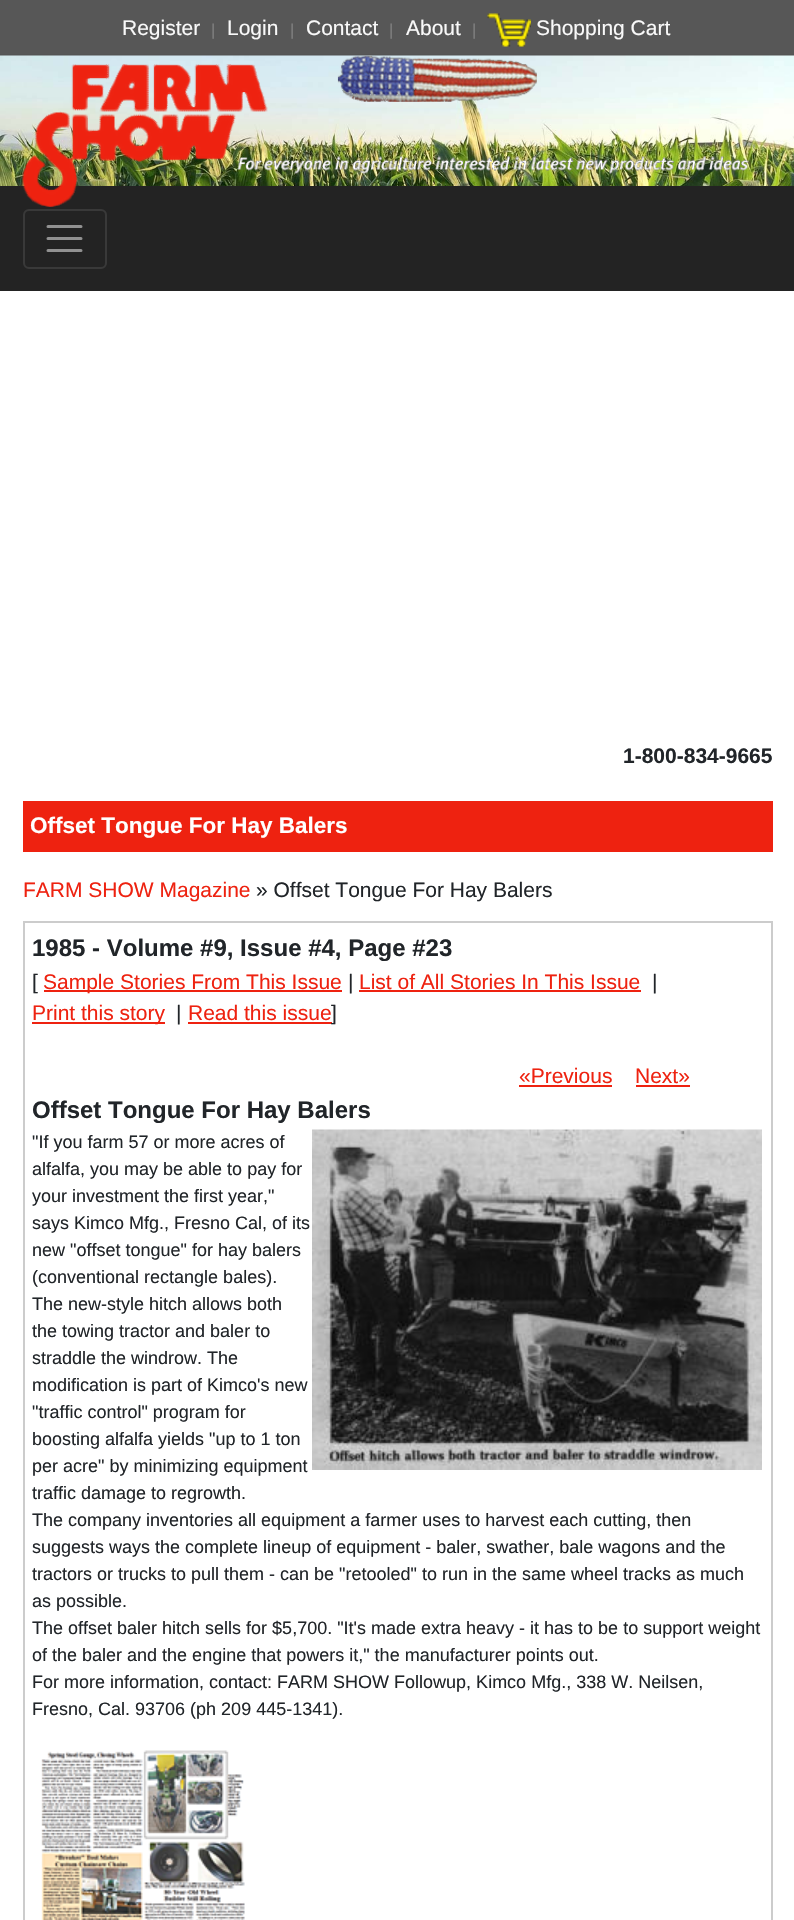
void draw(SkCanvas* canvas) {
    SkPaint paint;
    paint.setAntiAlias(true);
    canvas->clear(0xFFFFFFFF);
    paint.setColor(0xFF575757);
    canvas->drawRect(SkRect::MakeXYWH(0, 0, 794, 54), paint);
    paint.setColor(0xFF545454);
    canvas->drawRect(SkRect::MakeXYWH(0, 54, 794, 2), paint);
    SkFont font1(fontMgr->matchFamilyStyle("Liberation Sans", SkFontStyle::Normal()), 21);
    font1.setSubpixel(true);
    paint.setColor(0xFFF9F9F9);
    canvas->drawString("Register", 122, 35, font1, paint);
    SkFont font2(fontMgr->matchFamilyStyle("Open Sans", SkFontStyle::Normal()), 15);
    font2.setSubpixel(true);
    paint.setColor(0xFF898989);
    canvas->drawString("|", 209, 35, font2, paint);
    paint.setColor(0xFFF9F9F9);
    canvas->drawString("Login", 227, 35, font1, paint);
    paint.setColor(0xFF898989);
    canvas->drawString("|", 288, 35, font2, paint);
    paint.setColor(0xFFF9F9F9);
    canvas->drawString("Contact", 306, 35, font1, paint);
    paint.setColor(0xFF898989);
    canvas->drawString("|", 387, 35, font2, paint);
    paint.setColor(0xFFF9F9F9);
    canvas->drawString("About", 406, 35, font1, paint);
    paint.setColor(0xFF898989);
    canvas->drawString("|", 470, 35, font2, paint);
    canvas->drawImageRect(SkImages::DeferredFromEncodedData(SkData::MakeFromFileName("img1.png")), SkRect::MakeXYWH(487, 13, 44, 34), SkSamplingOptions());
    paint.setColor(0xFFF9F9F9);
    canvas->drawString("Shopping Cart", 536, 35, font1, paint);
    canvas->drawImageRect(SkImages::DeferredFromEncodedData(SkData::MakeFromFileName("img2.png")), SkRect::MakeXYWH(0, 55, 794, 131), SkSamplingOptions());
    paint.setColor(0xFF232323);
    canvas->drawRect(SkRect::MakeXYWH(0, 186, 794, 105), paint);
    canvas->drawImageRect(SkImages::DeferredFromEncodedData(SkData::MakeFromFileName("img3.png")), SkRect::MakeXYWH(22, 55, 727, 152), SkSamplingOptions());
    paint.setStyle(SkPaint::kStroke_Style);
    paint.setStrokeWidth(2);
    paint.setColor(0xFF393939);
    canvas->drawRoundRect(SkRect::MakeXYWH(24, 210, 82, 58), 5, 5, paint);
    paint.setStrokeWidth(3);
    paint.setStrokeCap(SkPaint::kRound_Cap);
    paint.setColor(0xFF919191);
    canvas->drawPath(SkPathBuilder().moveTo(48, 226.5f).lineTo(81, 226.5f).moveTo(48, 238.5f).lineTo(81, 238.5f).moveTo(48, 250.5f).lineTo(81, 250.5f).detach(), paint);
    SkFont font3(fontMgr->matchFamilyStyle("Liberation Sans", SkFontStyle::Bold()), 21);
    font3.setSubpixel(true);
    paint.setStyle(SkPaint::kFill_Style);
    paint.setColor(0xFF212529);
    canvas->drawString("1-800-834-9665", 623, 763, font3, paint);
    paint.setColor(0xFFEE2210);
    canvas->drawRect(SkRect::MakeXYWH(23, 801, 750, 51), paint);
    SkFont font4(fontMgr->matchFamilyStyle("Liberation Sans", SkFontStyle::Bold()), 22.5f);
    font4.setSubpixel(true);
    paint.setColor(0xFFFFFFFF);
    canvas->drawString("Offset Tongue For Hay Balers", 30, 833, font4, paint);
    paint.setColor(0xFFEE2210);
    canvas->drawString("FARM SHOW Magazine", 23, 897, font1, paint);
    paint.setColor(0xFF212529);
    canvas->drawString("» Offset Tongue For Hay Balers", 256, 897, font1, paint);
    paint.setStyle(SkPaint::kStroke_Style);
    paint.setStrokeWidth(2);
    paint.setStrokeCap(SkPaint::kButt_Cap);
    paint.setColor(0xFFCCCCCC);
    canvas->drawRect(SkRect::MakeXYWH(24, 922, 748, 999), paint);
    SkFont font5(fontMgr->matchFamilyStyle("Liberation Sans", SkFontStyle::Bold()), 24);
    font5.setSubpixel(true);
    paint.setStyle(SkPaint::kFill_Style);
    paint.setColor(0xFF212529);
    canvas->drawString("1985 - Volume #9, Issue #4, Page #23", 32, 956, font5, paint);
    canvas->drawString("[", 32, 989, font1, paint);
    paint.setColor(0xFFEE2210);
    canvas->drawRect(SkRect::MakeXYWH(44, 990, 298, 2), paint);
    canvas->drawString("Sample Stories From This Issue", 43, 989, font1, paint);
    paint.setColor(0xFF212529);
    canvas->drawString("|", 348, 989, font1, paint);
    paint.setColor(0xFFEE2210);
    canvas->drawString("List of All Stories In This Issue", 359, 989, font1, paint);
    canvas->drawRect(SkRect::MakeXYWH(359, 990, 282, 2), paint);
    paint.setColor(0xFF212529);
    canvas->drawString("|", 652, 989, font1, paint);
    paint.setColor(0xFFEE2210);
    canvas->drawRect(SkRect::MakeXYWH(32, 1022, 133, 2), paint);
    canvas->drawString("Print this story", 32, 1020, font1, paint);
    paint.setColor(0xFF212529);
    canvas->drawString("|", 176, 1020, font1, paint);
    paint.setColor(0xFFEE2210);
    canvas->drawString("Read this issue", 188, 1020, font1, paint);
    canvas->drawRect(SkRect::MakeXYWH(188, 1022, 144, 2), paint);
    paint.setColor(0xFF212529);
    canvas->drawString("]", 331, 1020, font1, paint);
    paint.setColor(0xFFEE2210);
    canvas->drawString("«Previous", 519, 1083, font1, paint);
    canvas->drawRect(SkRect::MakeXYWH(519, 1085, 93, 2), paint);
    canvas->drawString("Next»", 635, 1083, font1, paint);
    canvas->drawRect(SkRect::MakeXYWH(636, 1085, 54, 2), paint);
    paint.setColor(0xFF212529);
    canvas->drawString("Offset Tongue For Hay Balers", 32, 1118, font5, paint);
    SkFont font6(fontMgr->matchFamilyStyle("Liberation Sans", SkFontStyle::Normal()), 18);
    font6.setSubpixel(true);
    canvas->drawString("\"If you farm 57 or more acres of", 32, 1148, font6, paint);
    canvas->drawImageRect(SkImages::DeferredFromEncodedData(SkData::MakeFromFileName("img4.png")), SkRect::MakeXYWH(312, 1129, 450, 341), SkSamplingOptions());
    canvas->drawString("alfalfa, you may be able to pay for", 32, 1175, font6, paint);
    canvas->drawString("your investment the first year,\"", 32, 1202, font6, paint);
    canvas->drawString("says Kimco Mfg., Fresno Cal, of its", 32, 1229, font6, paint);
    canvas->drawString("new \"offset tongue\" for hay balers", 32, 1256, font6, paint);
    canvas->drawString("(conventional rectangle bales).", 32, 1283, font6, paint);
    canvas->drawString("The new-style hitch allows both", 32, 1310, font6, paint);
    canvas->drawString("the towing tractor and baler to", 32, 1337, font6, paint);
    canvas->drawString("straddle the windrow. The", 32, 1364, font6, paint);
    canvas->drawString("modification is part of Kimco's new", 32, 1391, font6, paint);
    canvas->drawString("\"traffic control\" program for", 32, 1418, font6, paint);
    canvas->drawString("boosting alfalfa yields \"up to 1 ton", 32, 1445, font6, paint);
    canvas->drawString("per acre\" by minimizing equipment", 32, 1472, font6, paint);
    canvas->drawString("traffic damage to regrowth.", 32, 1499, font6, paint);
    canvas->drawString("The company inventories all equipment a farmer uses to harvest each cutting, then", 32, 1526, font6, paint);
    canvas->drawString("suggests ways the complete lineup of equipment - baler, swather, bale wagons and the", 32, 1553, font6, paint);
    canvas->drawString("tractors or trucks to pull them - can be \"retooled\" to run in the same wheel tracks as much", 32, 1580, font6, paint);
    canvas->drawString("as possible.", 32, 1607, font6, paint);
    canvas->drawString("The offset baler hitch sells for $5,700. \"It's made extra heavy - it has to be to support weight", 32, 1634, font6, paint);
    canvas->drawString("of the baler and the engine that powers it,\" the manufacturer points out.", 32, 1661, font6, paint);
    canvas->drawString("For more information, contact: FARM SHOW Followup, Kimco Mfg., 338 W. Neilsen,", 32, 1688, font6, paint);
    canvas->drawString("Fresno, Cal. 93706 (ph 209 445-1341).", 32, 1715, font6, paint);
    canvas->drawImageRect(SkImages::DeferredFromEncodedData(SkData::MakeFromFileName("img5.png")), SkRect::MakeXYWH(41, 1750, 204, 170), SkSamplingOptions());
}
